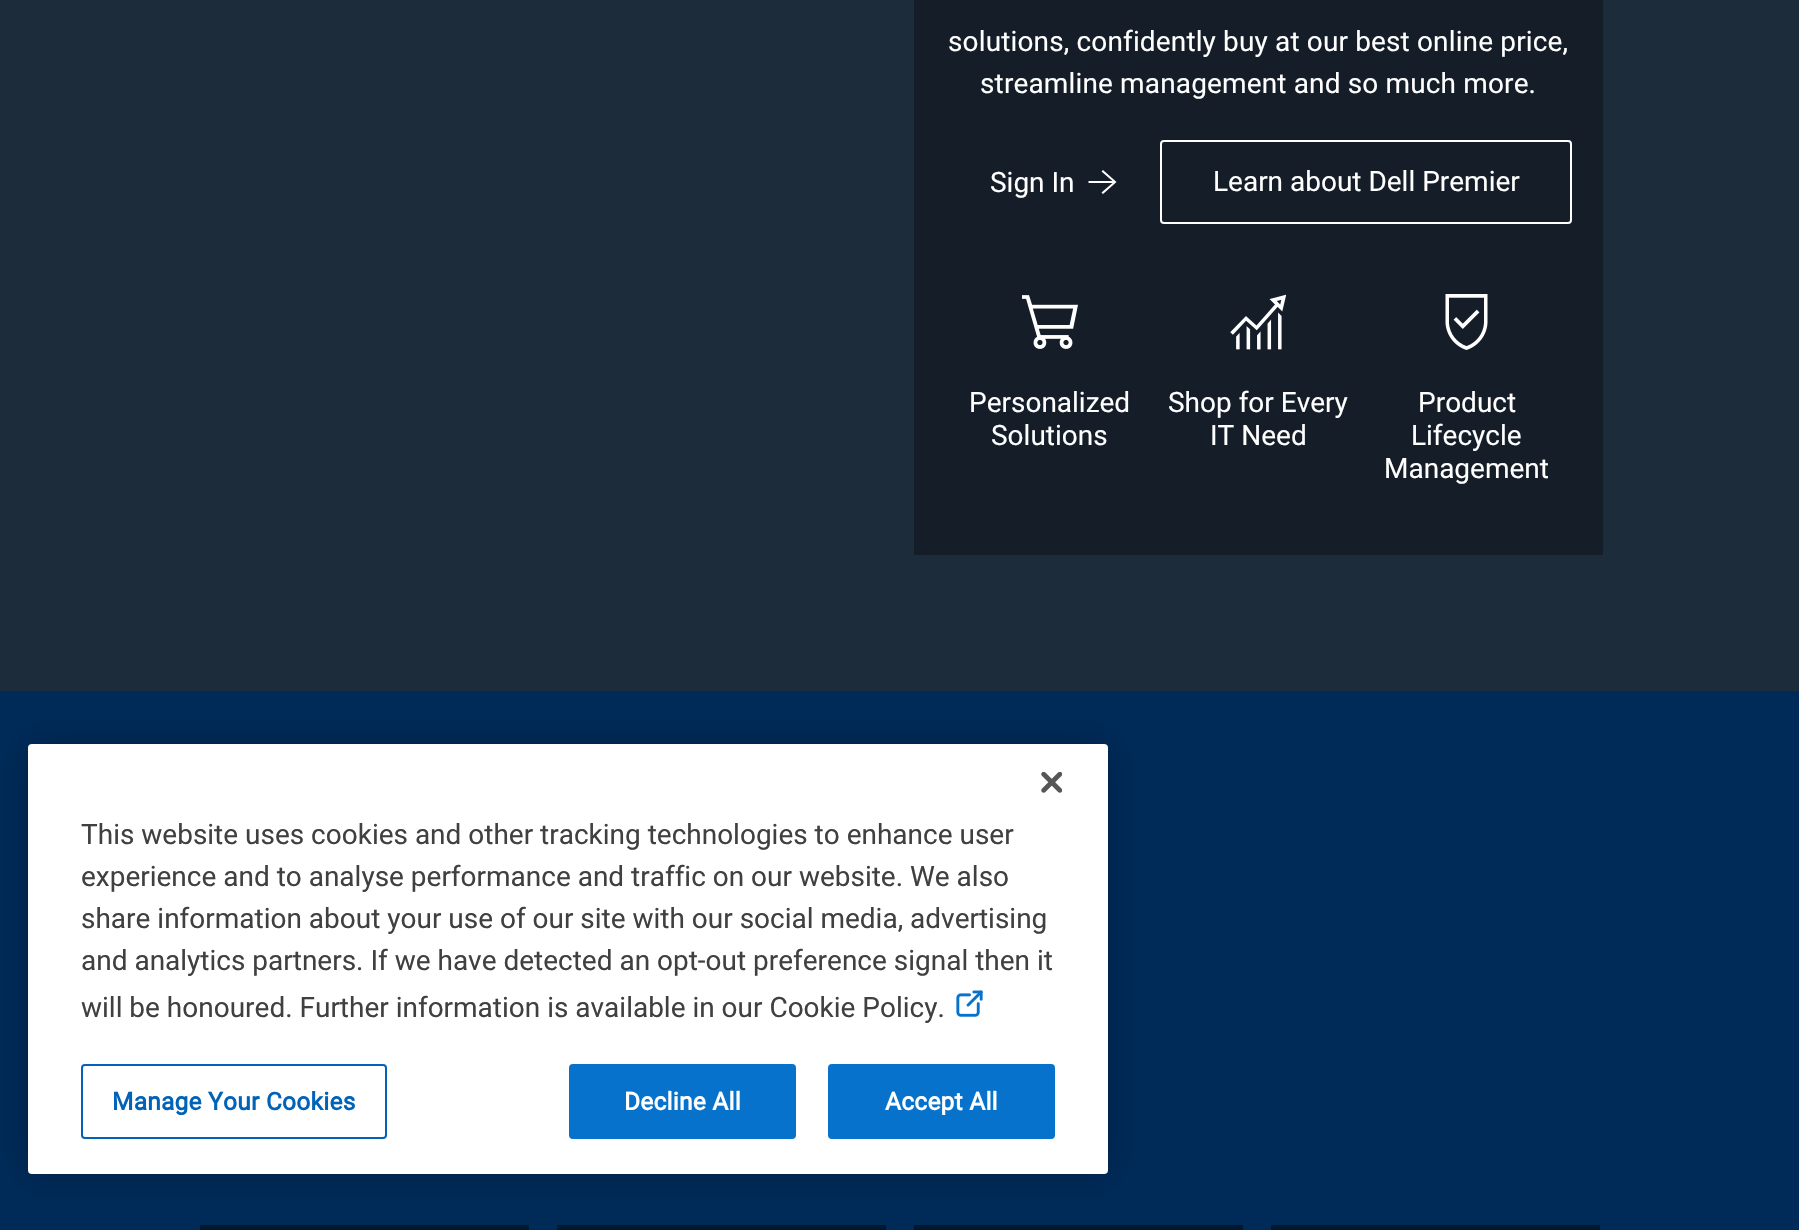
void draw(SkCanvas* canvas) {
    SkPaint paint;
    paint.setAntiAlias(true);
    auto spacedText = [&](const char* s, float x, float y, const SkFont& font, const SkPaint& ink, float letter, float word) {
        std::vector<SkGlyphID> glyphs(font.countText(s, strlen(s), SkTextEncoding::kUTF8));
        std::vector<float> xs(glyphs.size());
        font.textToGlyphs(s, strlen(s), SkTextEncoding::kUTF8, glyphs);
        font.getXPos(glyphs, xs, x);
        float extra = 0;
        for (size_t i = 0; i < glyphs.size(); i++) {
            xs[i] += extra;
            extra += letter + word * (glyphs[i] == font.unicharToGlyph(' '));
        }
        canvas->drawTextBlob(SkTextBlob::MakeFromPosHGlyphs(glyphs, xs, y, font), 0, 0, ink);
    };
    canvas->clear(0xFF1D2C3B);
    paint.setColor(0xFF141D28);
    canvas->drawRect(SkRect::MakeXYWH(914, 0, 689, 555), paint);
    SkFont font1(fontMgr->matchFamilyStyle("Roboto", SkFontStyle::Normal()), 28);
    font1.setSubpixel(true);
    paint.setColor(0xFFFFFFFF);
    spacedText("solutions, confidently buy at our best online price,", 948, 51, font1, paint, 0.15f, 0);
    spacedText("streamline management and so much more.", 980, 93, font1, paint, 0.15f, 0);
    canvas->drawString("Sign In", 990, 192, font1, paint);
    canvas->drawPath(SkPathBuilder().moveTo(1103, 170).lineTo(1101.5f, 171.5f).lineTo(1112.5f, 181).lineTo(1088.5f, 181).lineTo(1088.5f, 183).lineTo(1112.5f, 183).lineTo(1101.5f, 192.5f).lineTo(1103, 194).lineTo(1116.5f, 182).close().detach(), paint);
    paint.setStyle(SkPaint::kStroke_Style);
    paint.setStrokeWidth(2);
    canvas->drawRoundRect(SkRect::MakeXYWH(1161, 141, 410, 82), 3, 3, paint);
    paint.setStyle(SkPaint::kFill_Style);
    canvas->drawString("Learn about Dell Premier", 1213, 191, font1, paint);
    canvas->drawImageRect(SkImages::DeferredFromEncodedData(SkData::MakeFromFileName("img1.png")), SkRect::MakeXYWH(1022, 295, 56, 54), SkSamplingOptions());
    canvas->drawString("Personalized", 969, 412, font1, paint);
    canvas->drawString("Solutions", 991, 445, font1, paint);
    canvas->drawImageRect(SkImages::DeferredFromEncodedData(SkData::MakeFromFileName("img2.png")), SkRect::MakeXYWH(1230, 294, 56, 56), SkSamplingOptions());
    canvas->drawString("Shop for Every", 1168, 412, font1, paint);
    canvas->drawString("IT Need", 1210, 445, font1, paint);
    canvas->drawImageRect(SkImages::DeferredFromEncodedData(SkData::MakeFromFileName("img3.png")), SkRect::MakeXYWH(1445, 294, 43, 56), SkSamplingOptions());
    canvas->drawString("Product", 1418, 412, font1, paint);
    canvas->drawString("Lifecycle", 1411, 445, font1, paint);
    canvas->drawString("Management", 1384, 478, font1, paint);
    paint.setColor(0xFF002A58);
    canvas->drawRect(SkRect::MakeXYWH(0, 691, 1799, 539), paint);
    paint.setColor(0xFF001730);
    canvas->drawRect(SkRect::MakeXYWH(200, 1225, 329, 5), paint);
    canvas->drawRect(SkRect::MakeXYWH(557, 1225, 329, 5), paint);
    canvas->drawRect(SkRect::MakeXYWH(914, 1225, 329, 5), paint);
    canvas->drawRect(SkRect::MakeXYWH(1271, 1225, 329, 5), paint);
    paint.setColor(0x33000000);
    paint.setMaskFilter(SkMaskFilter::MakeBlur(kNormal_SkBlurStyle, 16));
    canvas->drawRoundRect(SkRect::MakeXYWH(28, 744, 1080, 430), 4, 4, paint);
    paint.setMaskFilter(nullptr);
    paint.setColor(0xFFFFFFFF);
    canvas->drawRoundRect(SkRect::MakeXYWH(28, 744, 1080, 430), 4, 4, paint);
    canvas->drawImageRect(SkImages::DeferredFromEncodedData(SkData::MakeFromFileName("img4.png")), SkRect::MakeXYWH(1041, 772, 21, 21), SkSamplingOptions());
    paint.setColor(0xFF404040);
    canvas->drawString("This website uses cookies and other tracking technologies to enhance user", 81, 844, font1, paint);
    canvas->drawString("experience and to analyse performance and traffic on our website. We also", 81, 886, font1, paint);
    canvas->drawString("share information about your use of our site with our social media, advertising", 81, 928, font1, paint);
    canvas->drawString("and analytics partners. If we have detected an opt-out preference signal then it", 81, 970, font1, paint);
    canvas->drawString("will be honoured. Further information is available in our Cookie Policy.", 81, 1017, font1, paint);
    canvas->drawImageRect(SkImages::DeferredFromEncodedData(SkData::MakeFromFileName("img5.png")), SkRect::MakeXYWH(956, 990, 27, 27), SkSamplingOptions());
    paint.setStyle(SkPaint::kStroke_Style);
    paint.setColor(0xFF0063B8);
    canvas->drawRoundRect(SkRect::MakeXYWH(82, 1065, 304, 73), 3, 3, paint);
    SkFont font2(fontMgr->matchFamilyStyle("Roboto", SkFontStyle::Bold()), 24.5f);
    font2.setSubpixel(true);
    paint.setStyle(SkPaint::kFill_Style);
    spacedText("Manage Your Cookies", 112, 1110, font2, paint, 0.25f, 0);
    paint.setColor(0xFF0672CB);
    canvas->drawRoundRect(SkRect::MakeXYWH(570, 1065, 225, 73), 3, 3, paint);
    paint.setStyle(SkPaint::kStroke_Style);
    canvas->drawRoundRect(SkRect::MakeXYWH(570, 1065, 225, 73), 3, 3, paint);
    paint.setStyle(SkPaint::kFill_Style);
    paint.setColor(0xFFFFFFFF);
    spacedText("Decline All", 624, 1110, font2, paint, 0.25f, 0);
    paint.setColor(0xFF0672CB);
    canvas->drawRoundRect(SkRect::MakeXYWH(829, 1065, 225, 73), 3, 3, paint);
    paint.setStyle(SkPaint::kStroke_Style);
    canvas->drawRoundRect(SkRect::MakeXYWH(829, 1065, 225, 73), 3, 3, paint);
    paint.setStyle(SkPaint::kFill_Style);
    paint.setColor(0xFFFFFFFF);
    spacedText("Accept All", 885, 1110, font2, paint, 0.25f, 0);
}
